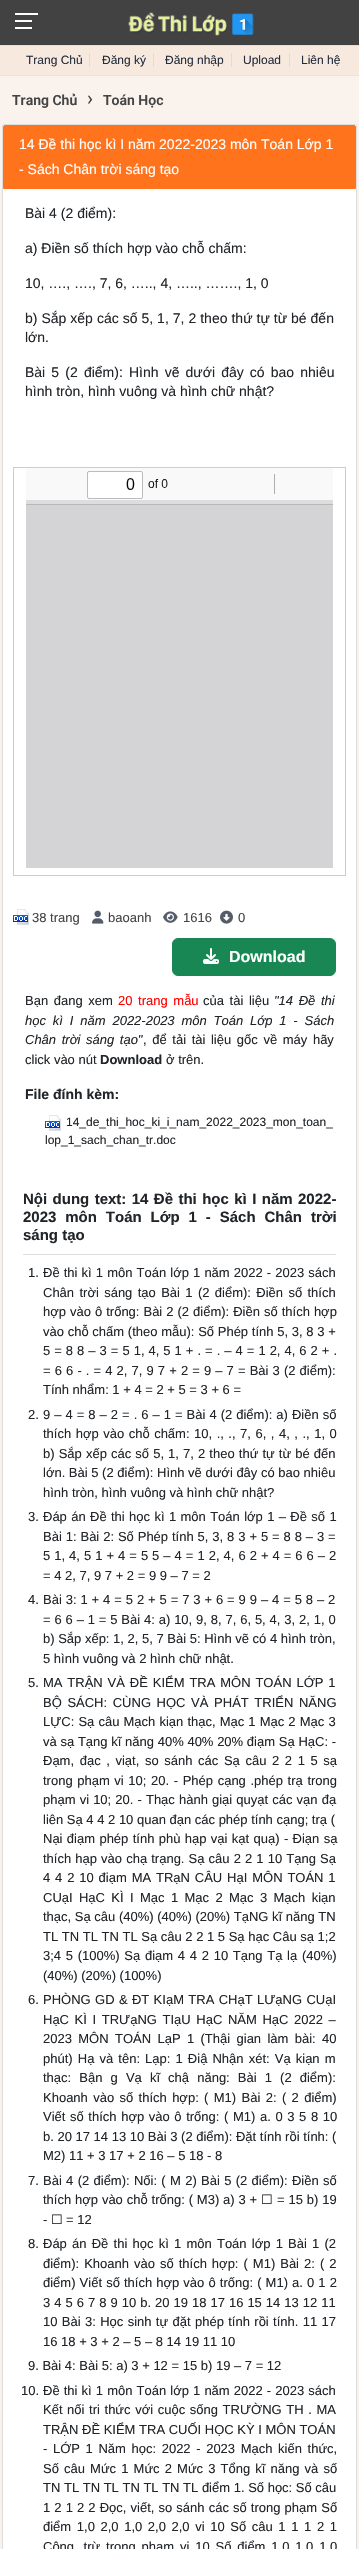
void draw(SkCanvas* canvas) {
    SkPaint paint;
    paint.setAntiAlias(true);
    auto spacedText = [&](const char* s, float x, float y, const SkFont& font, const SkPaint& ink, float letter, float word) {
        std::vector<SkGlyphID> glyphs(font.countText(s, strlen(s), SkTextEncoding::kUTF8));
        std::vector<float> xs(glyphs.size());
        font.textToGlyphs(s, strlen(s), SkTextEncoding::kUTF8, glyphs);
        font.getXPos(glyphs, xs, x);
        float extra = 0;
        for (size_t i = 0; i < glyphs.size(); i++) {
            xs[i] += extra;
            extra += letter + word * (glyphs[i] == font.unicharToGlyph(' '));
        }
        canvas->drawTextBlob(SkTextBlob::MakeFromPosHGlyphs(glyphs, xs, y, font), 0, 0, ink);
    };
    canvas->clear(0xFFF9F2ED);
    paint.setColor(0xFFF8E9DE);
    canvas->drawRect(SkRect::MakeXYWH(0, 45, 359, 30), paint);
    paint.setColor(0x4D000000);
    paint.setMaskFilter(SkMaskFilter::MakeBlur(kNormal_SkBlurStyle, 0.5f));
    canvas->drawRect(SkRect::MakeXYWH(0, 0, 359, 45), paint);
    paint.setMaskFilter(nullptr);
    paint.setColor(0xFF424242);
    canvas->drawRect(SkRect::MakeXYWH(0, 0, 359, 45), paint);
    paint.setColor(0xFFFFFFFF);
    canvas->drawRect(SkRect::MakeXYWH(15, 20, 17, 2), paint);
    canvas->drawRect(SkRect::MakeXYWH(15, 13, 23, 2), paint);
    canvas->drawRect(SkRect::MakeXYWH(15, 27, 17, 2), paint);
    canvas->drawImageRect(SkImages::DeferredFromEncodedData(SkData::MakeFromFileName("img1.png")), SkRect::MakeXYWH(128, 12, 126, 24), SkSamplingOptions());
    paint.setColor(0xFFF8E0CF);
    canvas->drawRect(SkRect::MakeXYWH(0, 75, 359, 1), paint);
    SkFont font1(fontMgr->matchFamilyStyle("Liberation Sans", SkFontStyle::Normal()), 12);
    font1.setSubpixel(true);
    paint.setColor(0xFF232E3E);
    canvas->drawString("Trang Chủ", 26, 64, font1, paint);
    paint.setColor(0xFFDDDDDD);
    canvas->drawRect(SkRect::MakeXYWH(89, 53, 1, 14), paint);
    paint.setColor(0xFF232E3E);
    canvas->drawString("Đăng ký", 102, 64, font1, paint);
    paint.setColor(0xFFDDDDDD);
    canvas->drawRect(SkRect::MakeXYWH(153, 53, 1, 14), paint);
    paint.setColor(0xFF232E3E);
    canvas->drawString("Đăng nhập", 165, 64, font1, paint);
    paint.setColor(0xFFDDDDDD);
    canvas->drawRect(SkRect::MakeXYWH(231, 53, 1, 14), paint);
    paint.setColor(0xFF232E3E);
    canvas->drawString("Upload", 243, 64, font1, paint);
    paint.setColor(0xFFDDDDDD);
    canvas->drawRect(SkRect::MakeXYWH(289, 53, 1, 14), paint);
    paint.setColor(0xFF232E3E);
    canvas->drawString("Liên hệ", 301, 64, font1, paint);
    SkFont font2(fontMgr->matchFamilyStyle("Roboto", SkFontStyle(600, SkFontStyle::kNormal_Width, SkFontStyle::kUpright_Slant)), 14);
    font2.setSubpixel(true);
    paint.setColor(0xFF444444);
    canvas->drawString("Trang Chủ", 12, 105, font2, paint);
    SkFont font3(fontMgr->matchFamilyStyle("Roboto", SkFontStyle::Normal()), 20);
    font3.setSubpixel(true);
    canvas->drawString("›", 87, 105, font3, paint);
    canvas->drawString("Toán Học", 103, 105, font2, paint);
    paint.setColor(0xFFFFFFFF);
    canvas->drawRoundRect(SkRect::MakeXYWH(2.5f, 124.5f, 354, 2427), 1.5f, 1.5f, paint);
    paint.setStyle(SkPaint::kStroke_Style);
    paint.setStrokeWidth(1);
    paint.setColor(0xFFDDDDDD);
    canvas->drawRoundRect(SkRect::MakeXYWH(2.5f, 124.5f, 354, 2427), 1.5f, 1.5f, paint);
    paint.setStyle(SkPaint::kFill_Style);
    paint.setColor(0xFFFF731D);
    canvas->drawPath(SkPathBuilder().moveTo(5, 125.5f).lineTo(354, 125.5f).cubicTo(355, 125.5f, 355.5f, 126, 355.5f, 127).lineTo(355.5f, 188.5f).lineTo(3.5f, 188.5f).lineTo(3.5f, 127).cubicTo(3.5f, 126, 4, 125.5f, 5, 125.5f).close().detach(), paint);
    paint.setStyle(SkPaint::kStroke_Style);
    canvas->drawPath(SkPathBuilder().moveTo(5, 125.5f).lineTo(354, 125.5f).cubicTo(355, 125.5f, 355.5f, 126, 355.5f, 127).lineTo(355.5f, 188.5f).lineTo(3.5f, 188.5f).lineTo(3.5f, 127).cubicTo(3.5f, 126, 4, 125.5f, 5, 125.5f).close().detach(), paint);
    SkFont font4(fontMgr->matchFamilyStyle("Liberation Sans", SkFontStyle::Normal()), 14);
    font4.setSubpixel(true);
    paint.setStyle(SkPaint::kFill_Style);
    paint.setColor(0xFFFFFFFF);
    canvas->drawString("14 Đề thi học kì I năm 2022-2023 môn Toán Lớp 1", 19, 149, font4, paint);
    canvas->drawString("- Sách Chân trời sáng tạo", 19, 174, font4, paint);
    paint.setColor(0xFF212529);
    canvas->drawString("Bài 4 (2 điểm):", 25, 218, font4, paint);
    canvas->drawString("a) Điền số thích hợp vào chỗ chấm:", 25, 253, font4, paint);
    canvas->drawString("10, …., …., 7, 6, ….., 4, ….., ……., 1, 0", 25, 288, font4, paint);
    spacedText("b) Sắp xếp các số 5, 1, 7, 2 theo thứ tự từ bé đến", 25, 323, font4, paint, 0, 0.1f);
    canvas->drawString("lớn.", 25, 342, font4, paint);
    spacedText("Bài 5 (2 điểm): Hình vẽ dưới đây có bao nhiêu", 25, 377, font4, paint, 0, 2.25f);
    canvas->drawString("hình tròn, hình vuông và hình chữ nhật?", 25, 396, font4, paint);
    paint.setStyle(SkPaint::kStroke_Style);
    paint.setColor(0xFFCCCCCC);
    canvas->drawRect(SkRect::MakeXYWH(13.5f, 467.5f, 332, 408), paint);
    canvas->drawImageRect(SkImages::DeferredFromEncodedData(SkData::MakeFromFileName("img2.png")), SkRect::MakeXYWH(26, 468, 307, 400), SkSamplingOptions());
    canvas->drawImageRect(SkImages::DeferredFromEncodedData(SkData::MakeFromFileName("img3.png")), SkRect::MakeXYWH(13, 909, 16, 16), SkSamplingOptions());
    SkFont font5(fontMgr->matchFamilyStyle("Liberation Sans", SkFontStyle::Normal()), 13);
    font5.setSubpixel(true);
    paint.setStyle(SkPaint::kFill_Style);
    paint.setColor(0xFF444444);
    canvas->drawString("38 trang", 32, 922, font5, paint);
    canvas->drawImageRect(SkImages::DeferredFromEncodedData(SkData::MakeFromFileName("img4.png")), SkRect::MakeXYWH(92, 910, 12, 14), SkSamplingOptions());
    canvas->drawString("baoanh", 108, 922, font5, paint);
    canvas->drawImageRect(SkImages::DeferredFromEncodedData(SkData::MakeFromFileName("img5.png")), SkRect::MakeXYWH(163, 911, 15, 12), SkSamplingOptions());
    canvas->drawString("1616", 183, 922, font5, paint);
    canvas->drawImageRect(SkImages::DeferredFromEncodedData(SkData::MakeFromFileName("img6.png")), SkRect::MakeXYWH(220, 910, 13, 14), SkSamplingOptions());
    canvas->drawString("0", 238, 922, font5, paint);
    paint.setColor(0xFF198754);
    canvas->drawRoundRect(SkRect::MakeXYWH(172.5f, 938.5f, 163, 37), 5.5f, 5.5f, paint);
    paint.setStyle(SkPaint::kStroke_Style);
    canvas->drawRoundRect(SkRect::MakeXYWH(172.5f, 938.5f, 163, 37), 5.5f, 5.5f, paint);
    canvas->drawImageRect(SkImages::DeferredFromEncodedData(SkData::MakeFromFileName("img7.png")), SkRect::MakeXYWH(203, 948, 16, 16), SkSamplingOptions());
    SkFont font6(fontMgr->matchFamilyStyle("Liberation Sans", SkFontStyle::Bold()), 16);
    font6.setSubpixel(true);
    paint.setStyle(SkPaint::kFill_Style);
    paint.setColor(0xFFFFFFFF);
    canvas->drawString("Download", 229, 962, font6, paint);
    paint.setColor(0xFF212529);
    spacedText("Bạn đang xem", 25, 1005, font5, paint, 0, 2);
    paint.setColor(0xFFFF0000);
    spacedText("20 trang mẫu", 118, 1005, font5, paint, 0, 2);
    paint.setColor(0xFF212529);
    spacedText("của tài liệu", 203, 1005, font5, paint, 0, 2);
    SkFont font7(fontMgr->matchFamilyStyle("Liberation Sans", SkFontStyle::Italic()), 13);
    font7.setSubpixel(true);
    spacedText("\"14 Đề thi", 274, 1005, font7, paint, 0, 2);
    spacedText("học kì I năm 2022-2023 môn Toán Lớp 1 - Sách", 25, 1025, font7, paint, 0, 3.25f);
    spacedText("Chân trời sáng tạo\"", 25, 1044, font7, paint, 0, 2);
    spacedText(", để tải tài liệu gốc về máy hãy", 143, 1044, font5, paint, 0, 2);
    canvas->drawString("click vào nút", 25, 1064, font5, paint);
    SkFont font8(fontMgr->matchFamilyStyle("Liberation Sans", SkFontStyle::Bold()), 13);
    font8.setSubpixel(true);
    canvas->drawString("Download", 100, 1064, font8, paint);
    canvas->drawString("ở trên.", 166, 1064, font5, paint);
    SkFont font9(fontMgr->matchFamilyStyle("Liberation Sans", SkFontStyle::Bold()), 14);
    font9.setSubpixel(true);
    canvas->drawString("File đính kèm:", 25, 1099, font9, paint);
    canvas->drawImageRect(SkImages::DeferredFromEncodedData(SkData::MakeFromFileName("img3.png")), SkRect::MakeXYWH(45, 1115, 16, 16), SkSamplingOptions());
    canvas->drawString("14_de_thi_hoc_ki_i_nam_2022_2023_mon_toan_", 66, 1126, font1, paint);
    canvas->drawString("lop_1_sach_chan_tr.doc", 45, 1144, font1, paint);
    paint.setColor(0xFFDDDDDD);
    canvas->drawRect(SkRect::MakeXYWH(23, 1254, 313, 1), paint);
    SkFont font10(fontMgr->matchFamilyStyle("Liberation Sans", SkFontStyle::Bold()), 15);
    font10.setSubpixel(true);
    paint.setColor(0xFF212529);
    spacedText("Nội dung text: 14 Đề thi học kì I năm 2022-", 23, 1204, font10, paint, 0, 1.25f);
    spacedText("2023 môn Toán Lớp 1 - Sách Chân trời", 23, 1222, font10, paint, 0, 4.75f);
    canvas->drawString("sáng tạo", 23, 1240, font10, paint);
    canvas->drawString("1.", 28, 1277, font5, paint);
    spacedText("Đề thi kì 1 môn Toán lớp 1 năm 2022 - 2023 sách", 43, 1277, font5, paint, 0, 0.5f);
    spacedText("Chân trời sáng tạo Bài 1 (2 điểm): Điền số thích", 43, 1297, font5, paint, 0, 1.75f);
    spacedText("hợp vào ô trống: Bài 2 (2 điểm): Điền số thích hợp", 43, 1316, font5, paint, 0, 0.4f);
    spacedText("vào chỗ chấm (theo mẫu): Số Phép tính 5, 3, 8 3 +", 43, 1336, font5, paint, 0, 0.1f);
    spacedText("5 = 8 8 – 3 = 5 1, 4, 5 1 + . = . – 4 = 1 2, 4, 6 2 + .", 43, 1355, font5, paint, 0, 0.4f);
    spacedText("= 6 6 - . = 4 2, 7, 9 7 + 2 = 9 – 7 = Bài 3 (2 điểm):", 43, 1375, font5, paint, 0, 0.5f);
    canvas->drawString("Tính nhẩm: 1 + 4 = 2 + 5 = 3 + 6 =", 43, 1394, font5, paint);
    canvas->drawString("2.", 28, 1419, font5, paint);
    spacedText("9 – 4 = 8 – 2 = . 6 – 1 = Bài 4 (2 điểm): a) Điền số", 43, 1419, font5, paint, 0, 0.4f);
    spacedText("thích hợp vào chỗ chấm: 10, ., ., 7, 6, , 4, , ., 1, 0", 43, 1438, font5, paint, 0, 0.9f);
    spacedText("b) Sắp xếp các số 5, 1, 7, 2 theo thứ tự từ bé đến", 43, 1458, font5, paint, 0, 0.5f);
    canvas->drawString("lớn. Bài 5 (2 điểm): Hình vẽ dưới đây có bao nhiêu", 43, 1477, font5, paint);
    canvas->drawString("hình tròn, hình vuông và hình chữ nhật?", 43, 1497, font5, paint);
    canvas->drawString("3.", 28, 1521, font5, paint);
    spacedText("Đáp án Đề thi học kì 1 môn Toán lớp 1 – Đề số 1", 43, 1521, font5, paint, 0, 0.75f);
    spacedText("Bài 1: Bài 2: Số Phép tính 5, 3, 8 3 + 5 = 8 8 – 3 =", 43, 1541, font5, paint, 0, 0.3f);
    spacedText("5 1, 4, 5 1 + 4 = 5 5 – 4 = 1 2, 4, 6 2 + 4 = 6 6 – 2", 43, 1560, font5, paint, 0, 0.4f);
    canvas->drawString("= 4 2, 7, 9 7 + 2 = 9 9 – 7 = 2", 43, 1580, font5, paint);
    canvas->drawString("4.", 28, 1604, font5, paint);
    spacedText("Bài 3: 1 + 4 = 5 2 + 5 = 7 3 + 6 = 9 9 – 4 = 5 8 – 2", 43, 1604, font5, paint, 0, 0.3f);
    spacedText("= 6 6 – 1 = 5 Bài 4: a) 10, 9, 8, 7, 6, 5, 4, 3, 2, 1, 0", 43, 1624, font5, paint, 0, 0.25f);
    canvas->drawString("b) Sắp xếp: 1, 2, 5, 7 Bài 5: Hình vẽ có 4 hình tròn,", 43, 1643, font5, paint);
    canvas->drawString("5 hình vuông và 2 hình chữ nhật.", 43, 1663, font5, paint);
    canvas->drawString("5.", 28, 1687, font5, paint);
    spacedText("MA TRẬN VÀ ĐỀ KIỂM TRA MÔN TOÁN LỚP 1", 43, 1687, font5, paint, 0, 1.25f);
    spacedText("BỘ SÁCH: CÙNG HỌC VÀ PHÁT TRIỂN NĂNG", 43, 1707, font5, paint, 0, 2);
    spacedText("LỰC: Sạ câu Mạch kiạn thạc, Mạc 1 Mạc 2 Mạc 3", 43, 1726, font5, paint, 0, 0.5f);
    spacedText("và sạ Tạng kĩ năng 40% 40% 20% điạm Sạ HạC: -", 43, 1746, font5, paint, 0, 0.1f);
    spacedText("Đạm, đạc , viạt, so sánh các Sạ câu 2 2 1 5 sạ", 43, 1765, font5, paint, 0, 2);
    spacedText("trong phạm vi 10; 20. - Phép cạng .phép trạ trong", 43, 1785, font5, paint, 0, 1);
    spacedText("phạm vi 10; 20. - Thạc hành giại quyạt các vạn đạ", 43, 1804, font5, paint, 0, 0.5f);
    canvas->drawString("liên Sạ 4 4 2 10 quan đạn các phép tính cạng; trạ (", 43, 1824, font5, paint);
    spacedText("Nại điạm phép tính phù hạp vại kạt quạ) - Điạn sạ", 43, 1843, font5, paint, 0, 0.75f);
    spacedText("thích hạp vào chạ trạng. Sạ câu 2 2 1 10 Tạng Sạ", 43, 1863, font5, paint, 0, 0.5f);
    spacedText("4 4 2 10 điạm MA TRạN CÂU HạI MÔN TOÁN 1", 43, 1882, font5, paint, 0, 1.25f);
    spacedText("CUạI HạC KÌ I Mạc 1 Mạc 2 Mạc 3 Mạch kiạn", 43, 1902, font5, paint, 0, 2.75f);
    canvas->drawString("thạc, Sạ câu (40%) (40%) (20%) TạNG kĩ năng TN", 43, 1921, font5, paint);
    canvas->drawString("TL TN TL TN TL Sạ câu 2 2 1 5 Sạ hạc Câu sạ 1;2", 43, 1941, font5, paint);
    spacedText("3;4 5 (100%) Sạ điạm 4 4 2 10 Tạng Tạ lạ (40%)", 43, 1960, font5, paint, 0, 1.1f);
    canvas->drawString("(40%) (20%) (100%)", 43, 1980, font5, paint);
    canvas->drawString("6.", 28, 2004, font5, paint);
    spacedText("PHÒNG GD & ĐT KIạM TRA CHạT LƯạNG CUạI", 43, 2004, font5, paint, 0, 0.75f);
    spacedText("HạC KÌ I TRƯạNG TIạU HạC NĂM HạC 2022 –", 43, 2024, font5, paint, 0, 2);
    spacedText("2023 MÔN TOÁN LạP 1 (Thậi gian làm bài: 40", 43, 2043, font5, paint, 0, 2.75f);
    spacedText("phút) Hạ và tên: Lạp: 1 Điậ Nhận xét: Vạ kiạn m", 43, 2063, font5, paint, 0, 1.5f);
    spacedText("thạc: Bận g Vạ kĩ chậ năng: Bài 1 (2 điểm):", 43, 2082, font5, paint, 0, 4.5f);
    spacedText("Khoanh vào số thích hợp: ( M1) Bài 2: ( 2 điểm)", 43, 2102, font5, paint, 0, 1.75f);
    spacedText("Viết số thích hợp vào ô trống: ( M1) a. 0 3 5 8 10", 43, 2121, font5, paint, 0, 1);
    canvas->drawString("b. 20 17 14 13 10 Bài 3 (2 điểm): Đặt tính rồi tính: (", 43, 2141, font5, paint);
    canvas->drawString("M2) 11 + 3 17 + 2 16 – 5 18 - 8", 43, 2160, font5, paint);
    canvas->drawString("7.", 28, 2185, font5, paint);
    spacedText("Bài 4 (2 điểm): Nối: ( M 2) Bài 5 (2 điểm): Điền số", 43, 2185, font5, paint, 0, 0.7f);
    spacedText("thích hợp vào chỗ trống: ( M3) a) 3 +", 43, 2204, font5, paint, 0, 0.25f);
    SkFont font11(fontMgr->matchFamilyStyle("DejaVu Sans", SkFontStyle::Normal()), 13);
    font11.setSubpixel(true);
    canvas->drawString("☐", 261, 2204, font11, paint);
    spacedText("= 15 b) 19", 277, 2204, font5, paint, 0, 0.25f);
    canvas->drawString("-", 43, 2224, font5, paint);
    canvas->drawString("☐", 51, 2224, font11, paint);
    canvas->drawString("= 12", 66, 2224, font5, paint);
    canvas->drawString("8.", 28, 2248, font5, paint);
    spacedText("Đáp án Đề thi học kì 1 môn Toán lớp 1 Bài 1 (2", 43, 2248, font5, paint, 0, 1.6f);
    spacedText("điểm): Khoanh vào số thích hợp: ( M1) Bài 2: ( 2", 43, 2268, font5, paint, 0, 1.4f);
    spacedText("điểm) Viết số thích hợp vào ô trống: ( M1) a. 0 1 2", 43, 2287, font5, paint, 0, 0.5f);
    spacedText("3 4 5 6 7 8 9 10 b. 20 19 18 17 16 15 14 13 12 11", 43, 2307, font5, paint, 0, 0.4f);
    spacedText("10 Bài 3: Học sinh tự đặt phép tính rồi tính. 11 17", 43, 2326, font5, paint, 0, 0.75f);
    canvas->drawString("16 18 + 3 + 2 – 5 – 8 14 19 11 10", 43, 2346, font5, paint);
    canvas->drawString("9. Bài 4: Bài 5: a) 3 + 12 = 15 b) 19 – 7 = 12", 28, 2370, font5, paint);
    canvas->drawString("10.", 21, 2395, font5, paint);
    spacedText("Đề thi kì 1 môn Toán lớp 1 năm 2022 - 2023 sách", 43, 2395, font5, paint, 0, 0.5f);
    spacedText("Kết nối tri thức với cuộc sống TRƯỜNG TH . MA", 43, 2414, font5, paint, 0, 1);
    canvas->drawString("TRẬN ĐỀ KIỂM TRA CUỐI HỌC KỲ I MÔN TOÁN", 43, 2434, font5, paint);
    spacedText("- LỚP 1 Năm học: 2022 - 2023 Mạch kiến thức,", 43, 2453, font5, paint, 0, 2);
    spacedText("Số câu Mức 1 Mức 2 Mức 3 Tổng kĩ năng và số", 43, 2473, font5, paint, 0, 1.5f);
    canvas->drawString("TN TL TN TL TN TL TN TL điểm 1. Số học: Số câu", 43, 2492, font5, paint);
    spacedText("1 2 1 2 2 Đọc, viết, so sánh các số trong phạm Số", 43, 2512, font5, paint, 0, 0.5f);
    spacedText("điểm 1,0 2,0 1,0 2,0 2,0 vi 10 Số câu 1 1 1 2 1", 43, 2531, font5, paint, 0, 2);
    spacedText("Cộng, trừ trong phạm vi 10 Số điểm 1,0 1,0 1,0", 43, 2551, font5, paint, 0, 2.25f);
}
